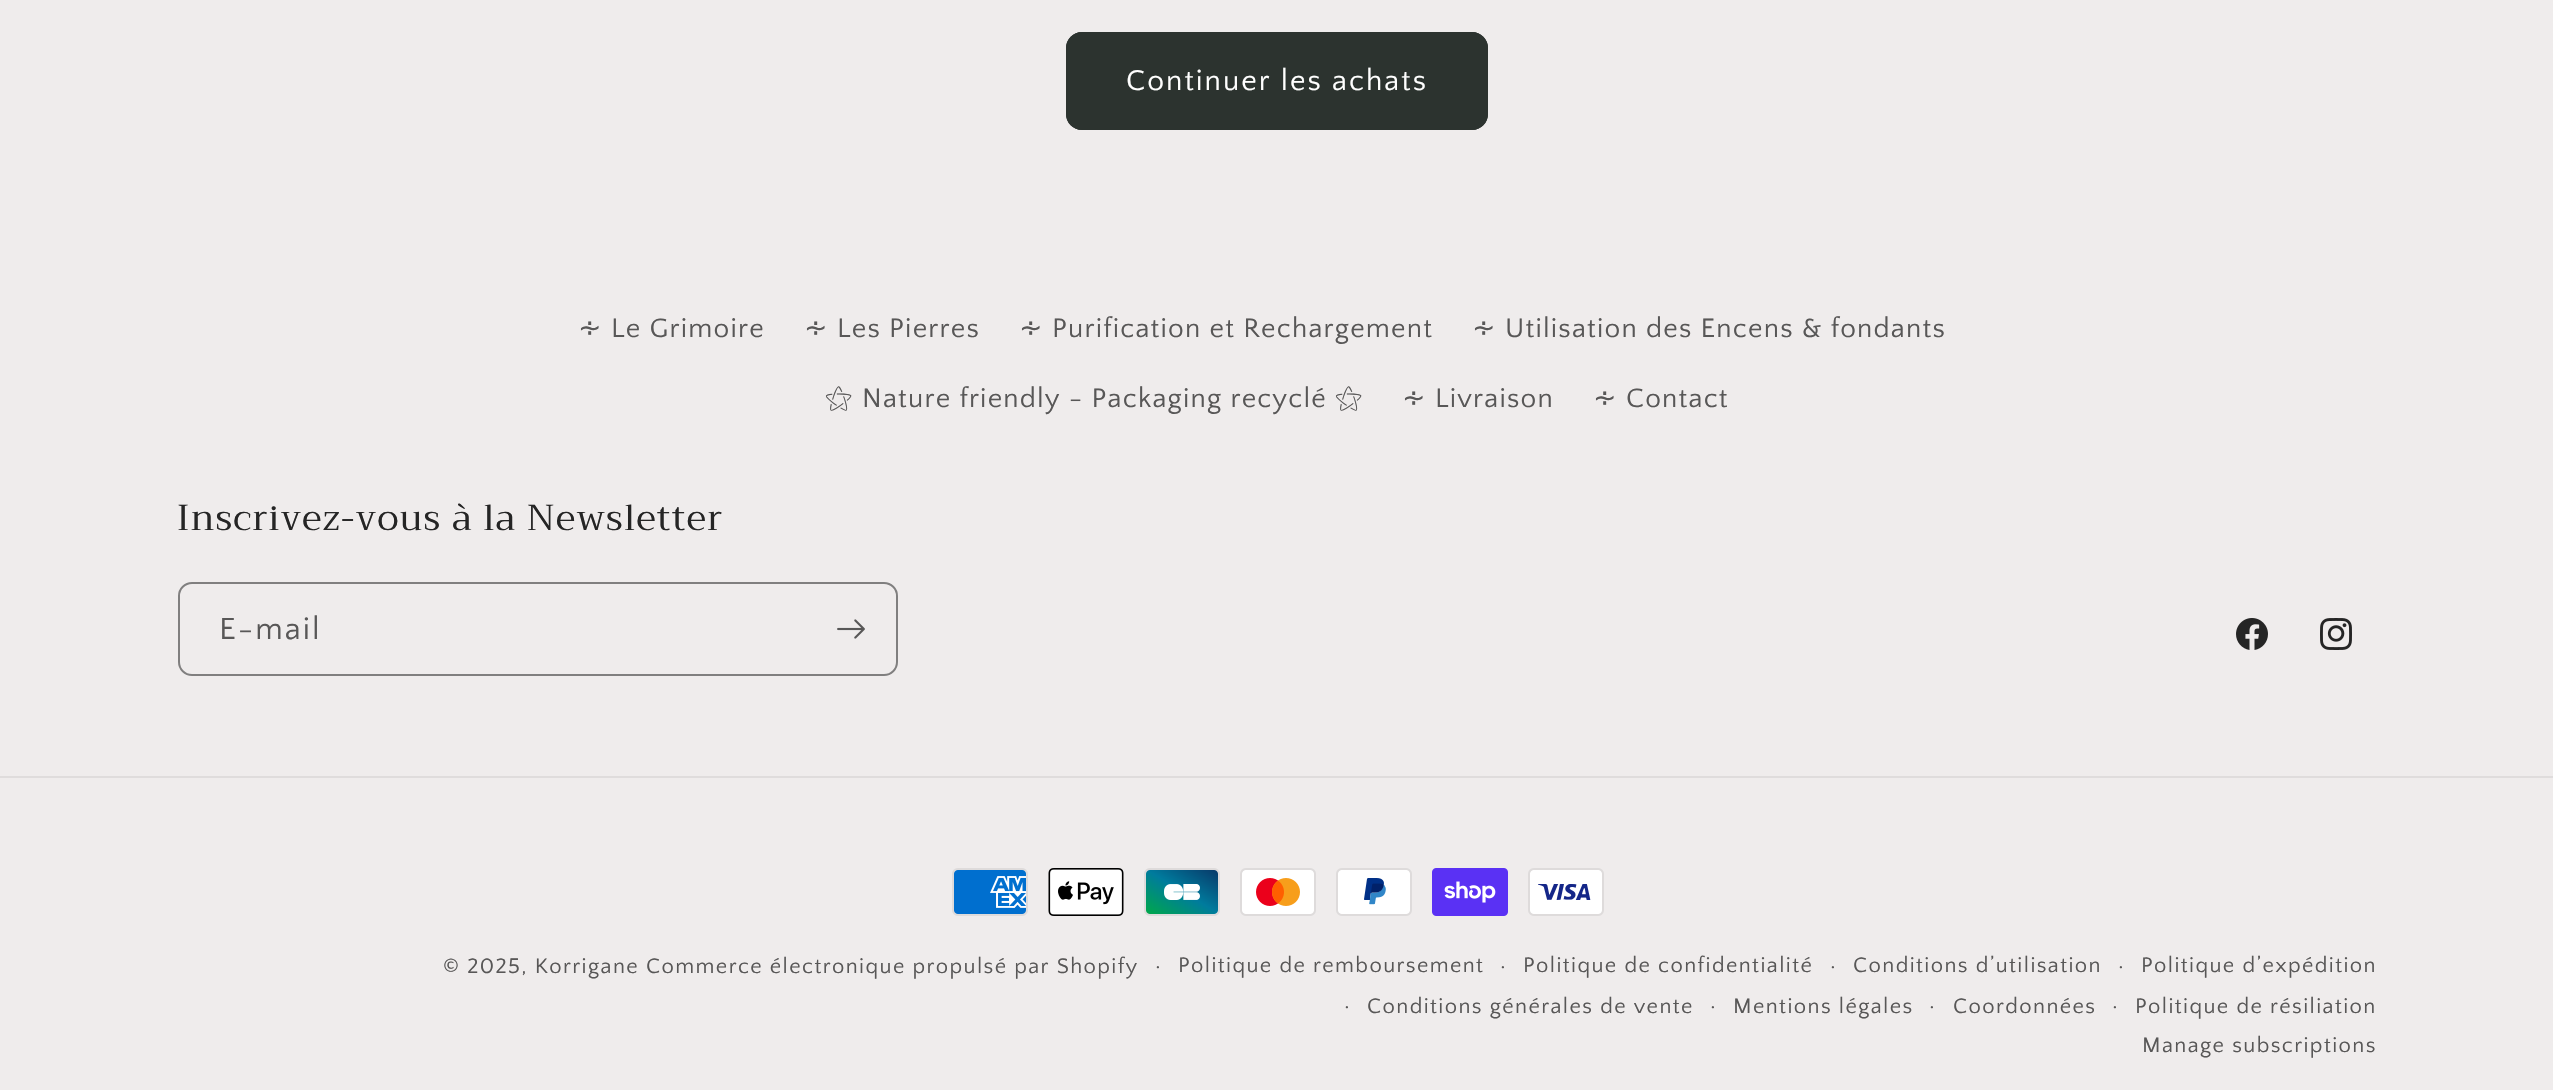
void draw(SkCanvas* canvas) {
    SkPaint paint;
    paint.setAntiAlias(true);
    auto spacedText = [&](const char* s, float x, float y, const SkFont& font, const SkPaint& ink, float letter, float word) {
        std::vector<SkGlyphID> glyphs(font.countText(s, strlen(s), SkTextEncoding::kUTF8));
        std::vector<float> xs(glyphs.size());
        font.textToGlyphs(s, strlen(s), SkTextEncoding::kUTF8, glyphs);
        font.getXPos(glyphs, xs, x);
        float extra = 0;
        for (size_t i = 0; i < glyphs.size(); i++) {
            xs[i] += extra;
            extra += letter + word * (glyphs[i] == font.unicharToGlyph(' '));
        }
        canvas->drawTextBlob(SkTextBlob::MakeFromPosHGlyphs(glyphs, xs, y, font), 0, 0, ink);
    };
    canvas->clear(0xFFEFECEC);
    paint.setColor(0xFF2C332F);
    canvas->drawRoundRect(SkRect::MakeXYWH(1066, 32, 422, 98), 16, 16, paint);
    paint.setStyle(SkPaint::kStroke_Style);
    paint.setStrokeWidth(4);
    canvas->drawRoundRect(SkRect::MakeXYWH(1068, 34, 418, 94), 14, 14, paint);
    SkFont font1(fontMgr->matchFamilyStyle("Quattrocento Sans", SkFontStyle::Normal()), 30);
    font1.setSubpixel(true);
    paint.setStyle(SkPaint::kFill_Style);
    paint.setColor(0xFFFFFFFF);
    spacedText("Continuer les achats", 1126, 90, font1, paint, 2, 0);
    SkFont font2(fontMgr->matchFamilyStyle("DejaVu Sans", SkFontStyle::Normal()), 28);
    font2.setSubpixel(true);
    paint.setColor(0xFF585757);
    spacedText("∻", 578, 337, font2, paint, 1.2f, 0);
    SkFont font3(fontMgr->matchFamilyStyle("Quattrocento Sans", SkFontStyle::Normal()), 28);
    font3.setSubpixel(true);
    spacedText("Le Grimoire", 611, 337, font3, paint, 1.2f, 0);
    spacedText("∻", 804, 337, font2, paint, 1.2f, 0);
    spacedText("Les Pierres", 837, 337, font3, paint, 1.2f, 0);
    spacedText("∻", 1019, 337, font2, paint, 1.2f, 0);
    spacedText("Purification et Rechargement", 1052, 337, font3, paint, 1.2f, 0);
    spacedText("∻", 1472, 337, font2, paint, 1.2f, 0);
    spacedText("Utilisation des Encens & fondants", 1505, 337, font3, paint, 1.2f, 0);
    SkFont font4(fontMgr->matchFamilyStyle("FreeSans", SkFontStyle::Normal()), 28);
    font4.setSubpixel(true);
    spacedText("⚝", 825, 407, font4, paint, 1.2f, 0);
    spacedText("Nature friendly - Packaging recyclé", 862, 407, font3, paint, 1.2f, 0);
    spacedText("⚝", 1335, 407, font4, paint, 1.2f, 0);
    spacedText("∻", 1402, 407, font2, paint, 1.2f, 0);
    spacedText("Livraison", 1435, 407, font3, paint, 1.2f, 0);
    spacedText("∻", 1593, 407, font2, paint, 1.2f, 0);
    spacedText("Contact", 1626, 407, font3, paint, 1.2f, 0);
    SkFont font5(fontMgr->matchFamilyStyle("Trirong", SkFontStyle::Normal()), 36);
    font5.setSubpixel(true);
    paint.setColor(0xFF252525);
    spacedText("Inscrivez-vous à la Newsletter", 177, 530, font5, paint, 1.2f, 0);
    paint.setStyle(SkPaint::kStroke_Style);
    paint.setStrokeWidth(2);
    paint.setColor(0xFF807F7F);
    canvas->drawRoundRect(SkRect::MakeXYWH(179, 583, 718, 92), 13, 13, paint);
    SkFont font6(fontMgr->matchFamilyStyle("Quattrocento Sans", SkFontStyle::Normal()), 32);
    font6.setSubpixel(true);
    paint.setStyle(SkPaint::kFill_Style);
    paint.setColor(0xFF585757);
    spacedText("E-mail", 219, 639, font6, paint, 2, 0);
    canvas->drawImageRect(SkImages::DeferredFromEncodedData(SkData::MakeFromFileName("img1.png")), SkRect::MakeXYWH(837, 619, 28, 20), SkSamplingOptions());
    canvas->drawImageRect(SkImages::DeferredFromEncodedData(SkData::MakeFromFileName("img2.png")), SkRect::MakeXYWH(2236, 618, 32, 32), SkSamplingOptions());
    canvas->drawImageRect(SkImages::DeferredFromEncodedData(SkData::MakeFromFileName("img3.png")), SkRect::MakeXYWH(2320, 618, 32, 32), SkSamplingOptions());
    paint.setColor(0xFFDFDCDC);
    canvas->drawRect(SkRect::MakeXYWH(0, 776, 2553, 2), paint);
    canvas->drawImageRect(SkImages::DeferredFromEncodedData(SkData::MakeFromFileName("img4.png")), SkRect::MakeXYWH(952, 868, 76, 48), SkSamplingOptions());
    canvas->drawImageRect(SkImages::DeferredFromEncodedData(SkData::MakeFromFileName("img5.png")), SkRect::MakeXYWH(1048, 868, 76, 48), SkSamplingOptions());
    canvas->drawImageRect(SkImages::DeferredFromEncodedData(SkData::MakeFromFileName("img6.png")), SkRect::MakeXYWH(1144, 868, 76, 48), SkSamplingOptions());
    canvas->drawImageRect(SkImages::DeferredFromEncodedData(SkData::MakeFromFileName("img7.png")), SkRect::MakeXYWH(1240, 868, 76, 48), SkSamplingOptions());
    canvas->drawImageRect(SkImages::DeferredFromEncodedData(SkData::MakeFromFileName("img8.png")), SkRect::MakeXYWH(1336, 868, 76, 48), SkSamplingOptions());
    canvas->drawImageRect(SkImages::DeferredFromEncodedData(SkData::MakeFromFileName("img9.png")), SkRect::MakeXYWH(1432, 868, 76, 48), SkSamplingOptions());
    canvas->drawImageRect(SkImages::DeferredFromEncodedData(SkData::MakeFromFileName("img10.png")), SkRect::MakeXYWH(1528, 868, 76, 48), SkSamplingOptions());
    SkFont font7(fontMgr->matchFamilyStyle("Quattrocento Sans", SkFontStyle::Normal()), 22);
    font7.setSubpixel(true);
    paint.setColor(0xFF585757);
    spacedText("© 2025, Korrigane", 443, 973, font7, paint, 1.4f, 0);
    spacedText("Commerce électronique propulsé par Shopify", 646, 973, font7, paint, 1.4f, 0);
    SkFont font8(fontMgr->matchFamilyStyle("Quattrocento Sans", SkFontStyle::Normal()), 24);
    font8.setSubpixel(true);
    spacedText("·", 1155, 973, font8, paint, 1.4f, 0);
    spacedText("Politique de remboursement", 1178, 972, font7, paint, 1.4f, 0);
    spacedText("·", 1500, 973, font8, paint, 1.4f, 0);
    spacedText("Politique de confidentialité", 1523, 972, font7, paint, 1.4f, 0);
    spacedText("·", 1830, 973, font8, paint, 1.4f, 0);
    spacedText("Conditions d’utilisation", 1853, 972, font7, paint, 1.4f, 0);
    spacedText("·", 2118, 973, font8, paint, 1.4f, 0);
    spacedText("Politique d’expédition", 2141, 972, font7, paint, 1.4f, 0);
    spacedText("·", 1344, 1013, font8, paint, 1.4f, 0);
    spacedText("Conditions générales de vente", 1367, 1013, font7, paint, 1.4f, 0);
    spacedText("·", 1710, 1013, font8, paint, 1.4f, 0);
    spacedText("Mentions légales", 1733, 1013, font7, paint, 1.4f, 0);
    spacedText("·", 1929, 1013, font8, paint, 1.4f, 0);
    spacedText("Coordonnées", 1953, 1013, font7, paint, 1.4f, 0);
    spacedText("·", 2112, 1013, font8, paint, 1.4f, 0);
    spacedText("Politique de résiliation", 2135, 1013, font7, paint, 1.4f, 0);
    spacedText("Manage subscriptions", 2142, 1052, font7, paint, 1.4f, 0);
}
